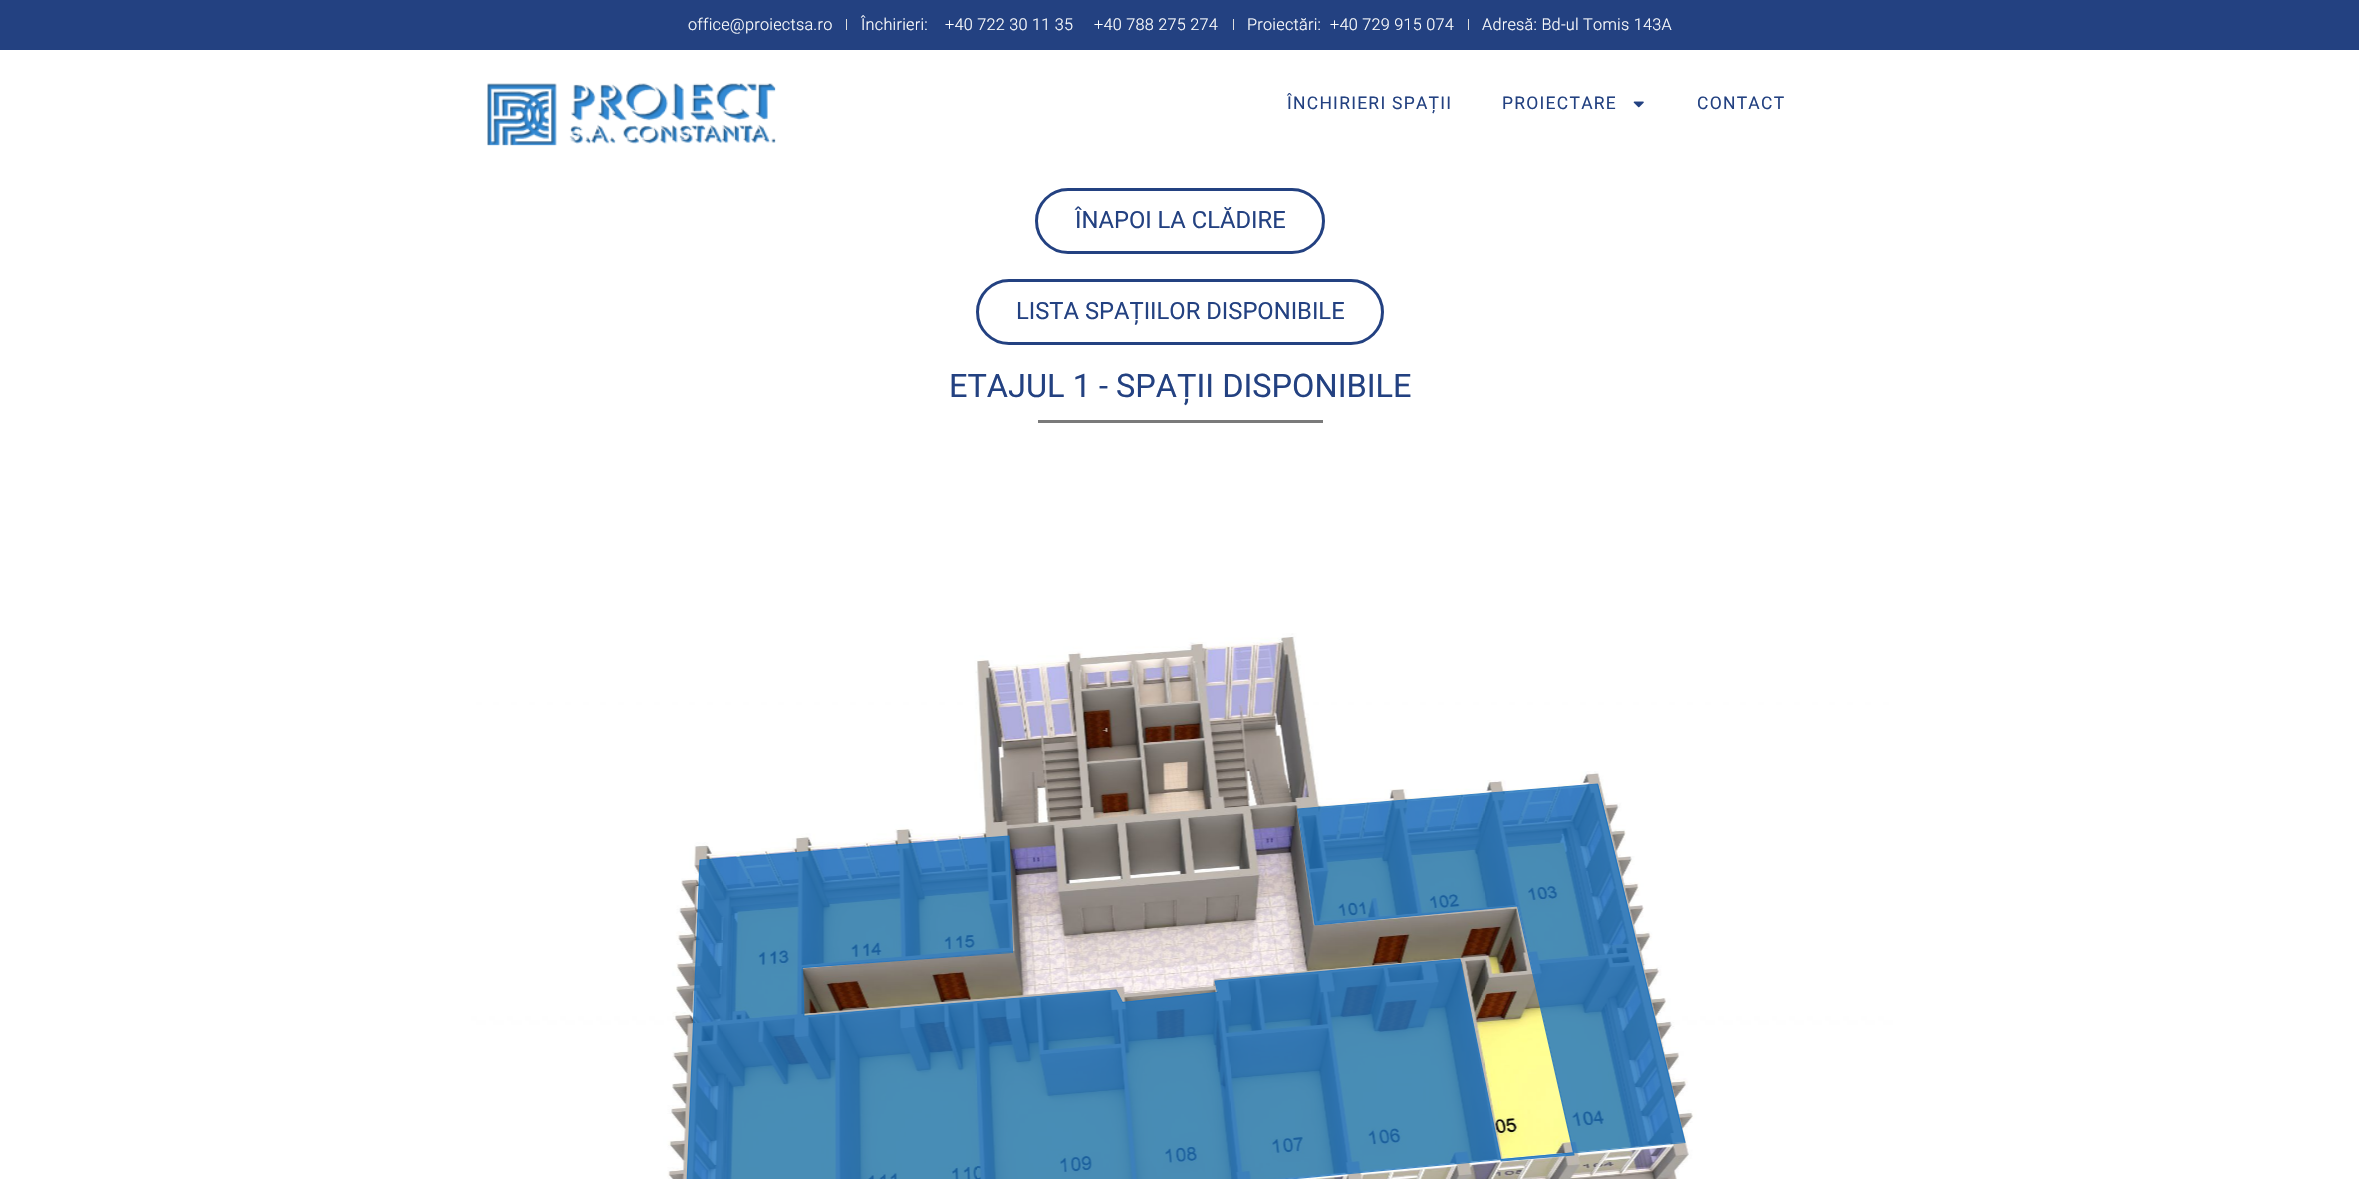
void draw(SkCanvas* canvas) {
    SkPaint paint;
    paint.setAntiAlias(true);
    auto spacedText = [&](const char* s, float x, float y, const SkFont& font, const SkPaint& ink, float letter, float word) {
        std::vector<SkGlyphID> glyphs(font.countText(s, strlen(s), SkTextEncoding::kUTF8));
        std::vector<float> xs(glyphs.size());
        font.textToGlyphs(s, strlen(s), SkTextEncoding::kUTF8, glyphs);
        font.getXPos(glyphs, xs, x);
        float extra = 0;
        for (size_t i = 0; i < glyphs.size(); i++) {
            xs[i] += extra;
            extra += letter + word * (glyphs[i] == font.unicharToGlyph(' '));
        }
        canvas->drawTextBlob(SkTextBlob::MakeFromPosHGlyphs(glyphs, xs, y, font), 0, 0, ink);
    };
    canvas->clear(0xFFFFFFFF);
    paint.setColor(0xFF234181);
    canvas->drawRect(SkRect::MakeXYWH(0, 0, 2359, 50), paint);
    SkFont font1(fontMgr->matchFamilyStyle("Roboto", SkFontStyle(300, SkFontStyle::kNormal_Width, SkFontStyle::kUpright_Slant)), 16.25f);
    font1.setSubpixel(true);
    paint.setColor(0xFFFFFFFF);
    spacedText("office@proiectsa.ro", 688, 30, font1, paint, 0.25f, 0);
    paint.setColor(0xFFDDDDDD);
    canvas->drawRect(SkRect::MakeXYWH(846, 19, 1, 11), paint);
    paint.setColor(0xFFFFFFFF);
    spacedText("Închirieri:", 861, 30, font1, paint, 0.25f, 0);
    spacedText("+40 722 30 11 35", 945, 30, font1, paint, 0.25f, 0);
    spacedText("+40 788 275 274", 1094, 30, font1, paint, 0.25f, 0);
    paint.setColor(0xFFDDDDDD);
    canvas->drawRect(SkRect::MakeXYWH(1233, 19, 1, 11), paint);
    paint.setColor(0xFFFFFFFF);
    spacedText("Proiectări:", 1247, 30, font1, paint, 0.25f, 0);
    spacedText("+40 729 915 074", 1330, 30, font1, paint, 0.25f, 0);
    paint.setColor(0xFFDDDDDD);
    canvas->drawRect(SkRect::MakeXYWH(1468, 19, 1, 11), paint);
    paint.setColor(0xFFFFFFFF);
    spacedText("Adresă: Bd-ul Tomis 143A", 1482, 30, font1, paint, 0.25f, 0);
    canvas->drawImageRect(SkImages::DeferredFromEncodedData(SkData::MakeFromFileName("img1.png")), SkRect::MakeXYWH(487, 83, 289, 63), SkSamplingOptions());
    SkFont font2(fontMgr->matchFamilyStyle("Roboto", SkFontStyle::Normal()), 17.5f);
    font2.setSubpixel(true);
    paint.setColor(0xFF234181);
    spacedText("ÎNCHIRIERI SPAȚII", 1287, 109, font2, paint, 1.25f, 0);
    spacedText("PROIECTARE", 1502, 109, font2, paint, 1.25f, 0);
    canvas->drawImageRect(SkImages::DeferredFromEncodedData(SkData::MakeFromFileName("img2.png")), SkRect::MakeXYWH(1633, 101, 11, 7), SkSamplingOptions());
    spacedText("CONTACT", 1697, 109, font2, paint, 1.25f, 0);
    paint.setStyle(SkPaint::kStroke_Style);
    paint.setStrokeWidth(3);
    canvas->drawRoundRect(SkRect::MakeXYWH(1036.5f, 189.5f, 287, 63), 31.5f, 31.5f, paint);
    SkFont font3(fontMgr->matchFamilyStyle("Roboto", SkFontStyle::Normal()), 23.75f);
    font3.setSubpixel(true);
    paint.setStyle(SkPaint::kFill_Style);
    canvas->drawString("ÎNAPOI LA CLĂDIRE", 1075, 228, font3, paint);
    paint.setStyle(SkPaint::kStroke_Style);
    canvas->drawRoundRect(SkRect::MakeXYWH(977.5f, 280.5f, 405, 63), 31.5f, 31.5f, paint);
    paint.setStyle(SkPaint::kFill_Style);
    canvas->drawString("LISTA SPAȚIILOR DISPONIBILE", 1016, 319, font3, paint);
    SkFont font4(fontMgr->matchFamilyStyle("Roboto", SkFontStyle::Normal()), 32.5f);
    font4.setSubpixel(true);
    canvas->drawString("ETAJUL 1 - SPAȚII DISPONIBILE", 949, 397, font4, paint);
    paint.setColor(0xFF7A7A7A);
    canvas->drawRect(SkRect::MakeXYWH(1038, 420, 285, 3), paint);
    canvas->drawImageRect(SkImages::DeferredFromEncodedData(SkData::MakeFromFileName("img3.png")), SkRect::MakeXYWH(468, 486, 1425, 693), SkSamplingOptions());
    paint.setColor(0xCF1E73BE);
    canvas->drawPath(SkPathBuilder(SkPathFillType::kEvenOdd).moveTo(804, 1016).lineTo(1116, 990).lineTo(1122, 1002).lineTo(1218, 992).lineTo(1215, 981).lineTo(1460, 959).lineTo(1501, 1161).lineTo(1574, 1155).lineTo(1518, 906).lineTo(1315, 925).lineTo(1298, 809).lineTo(1598, 784).lineTo(1685, 1142).lineTo(685, 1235).lineTo(700, 860).lineTo(1009, 836).lineTo(1012, 952).lineTo(802, 968).close().detach(), paint);
    paint.setStyle(SkPaint::kStroke_Style);
    paint.setStrokeWidth(1.2f);
    paint.setStrokeCap(SkPaint::kRound_Cap);
    paint.setStrokeJoin(SkPaint::kRound_Join);
    canvas->drawPath(SkPathBuilder().moveTo(804, 1016).lineTo(1116, 990).lineTo(1122.5f, 1002.5f).lineTo(1217.5f, 992.5f).lineTo(1215, 981).lineTo(1460, 959).lineTo(1501, 1161).lineTo(1574, 1155).lineTo(1517.5f, 906).lineTo(1315, 925).lineTo(1297.5f, 809).lineTo(1597.5f, 784).lineTo(1685, 1142.5f).lineTo(685, 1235).lineTo(700, 860).lineTo(1009, 836).lineTo(1012.5f, 952.5f).lineTo(802.5f, 967.5f).close().detach(), paint);
}
